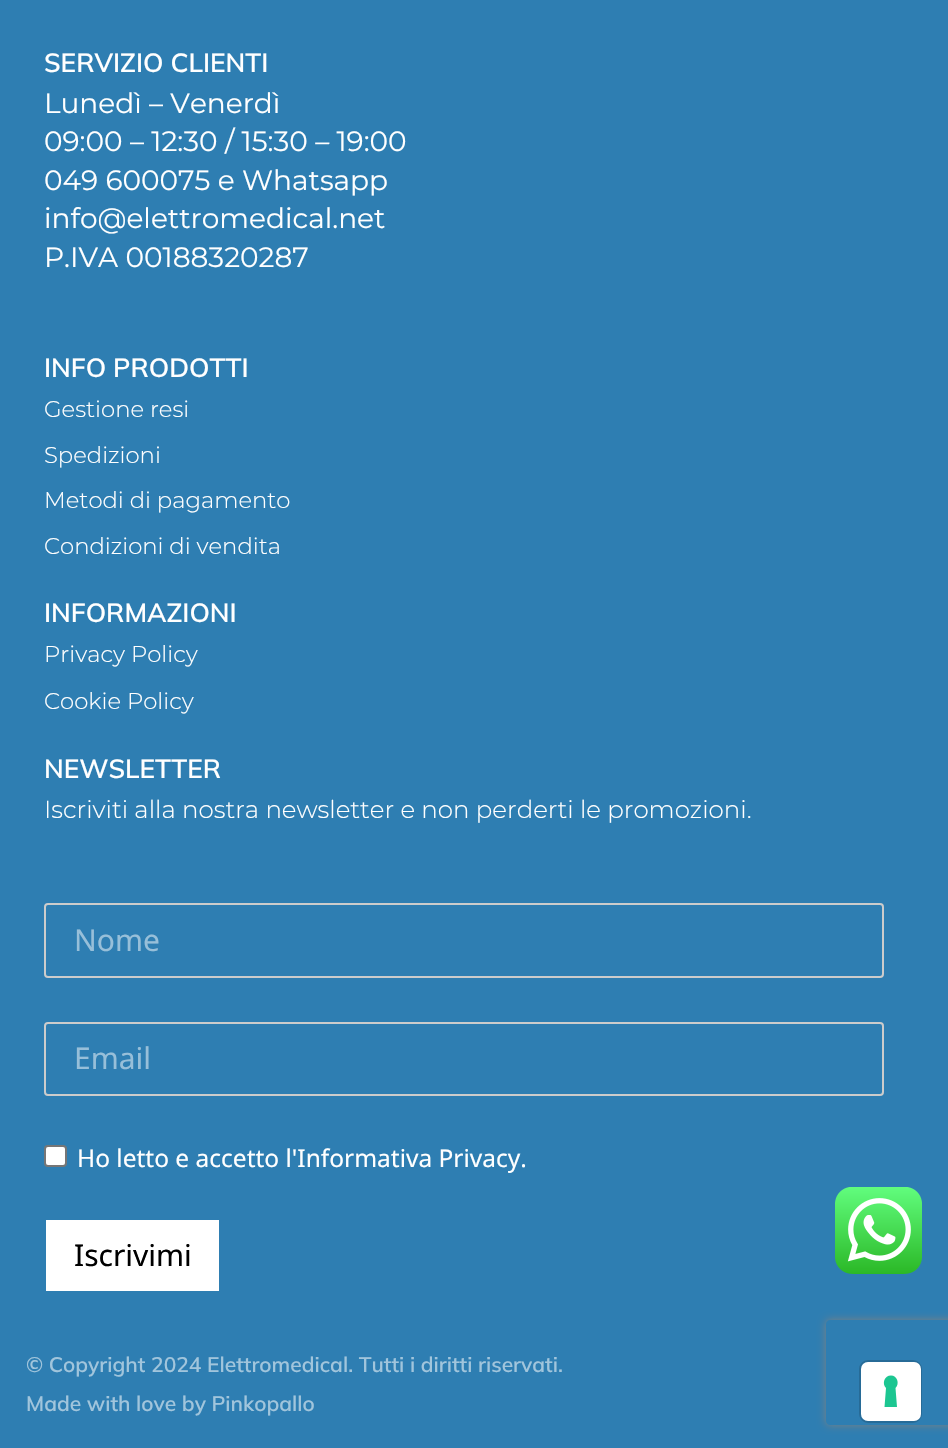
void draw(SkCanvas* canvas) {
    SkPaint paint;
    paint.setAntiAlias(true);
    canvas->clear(0xFF2E7EB2);
    SkFont font1(fontMgr->matchFamilyStyle("Mulish", SkFontStyle(600, SkFontStyle::kNormal_Width, SkFontStyle::kUpright_Slant)), 26.25f);
    font1.setSubpixel(true);
    paint.setColor(0xFFFFFFFF);
    canvas->drawString("SERVIZIO CLIENTI", 44, 72, font1, paint);
    SkFont font2(fontMgr->matchFamilyStyle("Montserrat", SkFontStyle::Normal()), 28);
    font2.setSubpixel(true);
    canvas->drawString("Lunedì – Venerdì", 44, 113, font2, paint);
    canvas->drawString("09:00 – 12:30 / 15:30 – 19:00", 44, 151, font2, paint);
    canvas->drawString("049 600075 e Whatsapp", 44, 190, font2, paint);
    canvas->drawString("info@elettromedical.net", 44, 228, font2, paint);
    canvas->drawString("P.IVA 00188320287", 44, 267, font2, paint);
    canvas->drawString("INFO PRODOTTI", 44, 377, font1, paint);
    SkFont font3(fontMgr->matchFamilyStyle("Montserrat", SkFontStyle(300, SkFontStyle::kNormal_Width, SkFontStyle::kUpright_Slant)), 22.75f);
    font3.setSubpixel(true);
    canvas->drawString("Gestione resi", 44, 417, font3, paint);
    canvas->drawString("Spedizioni", 44, 463, font3, paint);
    canvas->drawString("Metodi di pagamento", 44, 508, font3, paint);
    canvas->drawString("Condizioni di vendita", 44, 554, font3, paint);
    canvas->drawString("INFORMAZIONI", 44, 622, font1, paint);
    canvas->drawString("Privacy Policy", 44, 662, font3, paint);
    canvas->drawString("Cookie Policy", 44, 709, font3, paint);
    canvas->drawString("NEWSLETTER", 44, 778, font1, paint);
    SkFont font4(fontMgr->matchFamilyStyle("Montserrat", SkFontStyle(300, SkFontStyle::kNormal_Width, SkFontStyle::kUpright_Slant)), 24.5f);
    font4.setSubpixel(true);
    canvas->drawString("Iscriviti alla nostra newsletter e non perderti le promozioni.", 44, 818, font4, paint);
    paint.setStyle(SkPaint::kStroke_Style);
    paint.setStrokeWidth(2);
    paint.setColor(0xFFCCCCCC);
    canvas->drawRoundRect(SkRect::MakeXYWH(45, 904, 838, 73), 3, 3, paint);
    SkFont font5(fontMgr->matchFamilyStyle("Noto Sans", SkFontStyle::Normal()), 30);
    font5.setSubpixel(true);
    paint.setStyle(SkPaint::kFill_Style);
    paint.setColor(0xFF97BFD9);
    canvas->drawString("Nome", 74, 951, font5, paint);
    paint.setStyle(SkPaint::kStroke_Style);
    paint.setColor(0xFFCCCCCC);
    canvas->drawRoundRect(SkRect::MakeXYWH(45, 1023, 838, 72), 3, 3, paint);
    paint.setStyle(SkPaint::kFill_Style);
    paint.setColor(0xFF97BFD9);
    canvas->drawString("Email", 74, 1069, font5, paint);
    paint.setColor(0xFFFFFFFF);
    canvas->drawRoundRect(SkRect::MakeXYWH(45, 1146, 21, 20), 3, 3, paint);
    paint.setStyle(SkPaint::kStroke_Style);
    paint.setColor(0xFF767676);
    canvas->drawRoundRect(SkRect::MakeXYWH(45, 1146, 21, 20), 3, 3, paint);
    SkFont font6(fontMgr->matchFamilyStyle("Noto Sans", SkFontStyle::Normal()), 24.5f);
    font6.setSubpixel(true);
    paint.setStyle(SkPaint::kFill_Style);
    paint.setColor(0xFFFFFFFF);
    canvas->drawString("Ho letto e accetto l'Informativa Privacy.", 77, 1167, font6, paint);
    canvas->drawRect(SkRect::MakeXYWH(46, 1220, 173, 71), paint);
    paint.setColor(0xFF000000);
    canvas->drawString("Iscrivimi", 74, 1266, font5, paint);
    SkFont font7(fontMgr->matchFamilyStyle("Mulish", SkFontStyle(600, SkFontStyle::kNormal_Width, SkFontStyle::kUpright_Slant)), 21);
    font7.setSubpixel(true);
    paint.setColor(0xFFA1C5DC);
    canvas->drawString("© Copyright 2024 Elettromedical. Tutti i diritti riservati.", 26, 1372, font7, paint);
    canvas->drawString("Made with love by Pinkopallo", 26, 1411, font7, paint);
    canvas->drawImageRect(SkImages::DeferredFromEncodedData(SkData::MakeFromFileName("img1.png")), SkRect::MakeXYWH(835, 1187, 87, 87), SkSamplingOptions());
    canvas->save();
    canvas->clipPath(SkPathBuilder(SkPathFillType::kEvenOdd).moveTo(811, 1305).lineTo(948, 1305).lineTo(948, 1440).lineTo(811, 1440).close().moveTo(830, 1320).lineTo(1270, 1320).cubicTo(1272, 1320, 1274, 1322, 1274, 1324).lineTo(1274, 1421).cubicTo(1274, 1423, 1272, 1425, 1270, 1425).lineTo(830, 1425).cubicTo(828, 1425, 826, 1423, 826, 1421).lineTo(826, 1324).cubicTo(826, 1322, 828, 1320, 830, 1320).close().detach(), true);
    paint.setColor(0xFF808080);
    paint.setMaskFilter(SkMaskFilter::MakeBlur(kNormal_SkBlurStyle, 4.5f));
    canvas->drawRoundRect(SkRect::MakeXYWH(826, 1320, 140, 105), 4, 4, paint);
    paint.setMaskFilter(nullptr);
    canvas->restore();
    paint.setStyle(SkPaint::kStroke_Style);
    paint.setColor(0xFF276B97);
    canvas->drawRoundRect(SkRect::MakeXYWH(860, 1361, 61, 61), 8, 8, paint);
    paint.setStyle(SkPaint::kFill_Style);
    paint.setColor(0xFFFFFFFF);
    canvas->drawRoundRect(SkRect::MakeXYWH(861, 1362, 60, 59), 7, 7, paint);
    paint.setColor(0xFF1CC691);
    canvas->drawPath(SkPathBuilder(SkPathFillType::kEvenOdd).moveTo(891, 1375.5f).cubicTo(897, 1375.5f, 900, 1383.5f, 895.5f, 1388).lineTo(897, 1407).lineTo(884.5f, 1407).lineTo(886, 1388).cubicTo(881.5f, 1383.5f, 884.5f, 1375.5f, 891, 1375.5f).close().detach(), paint);
}
